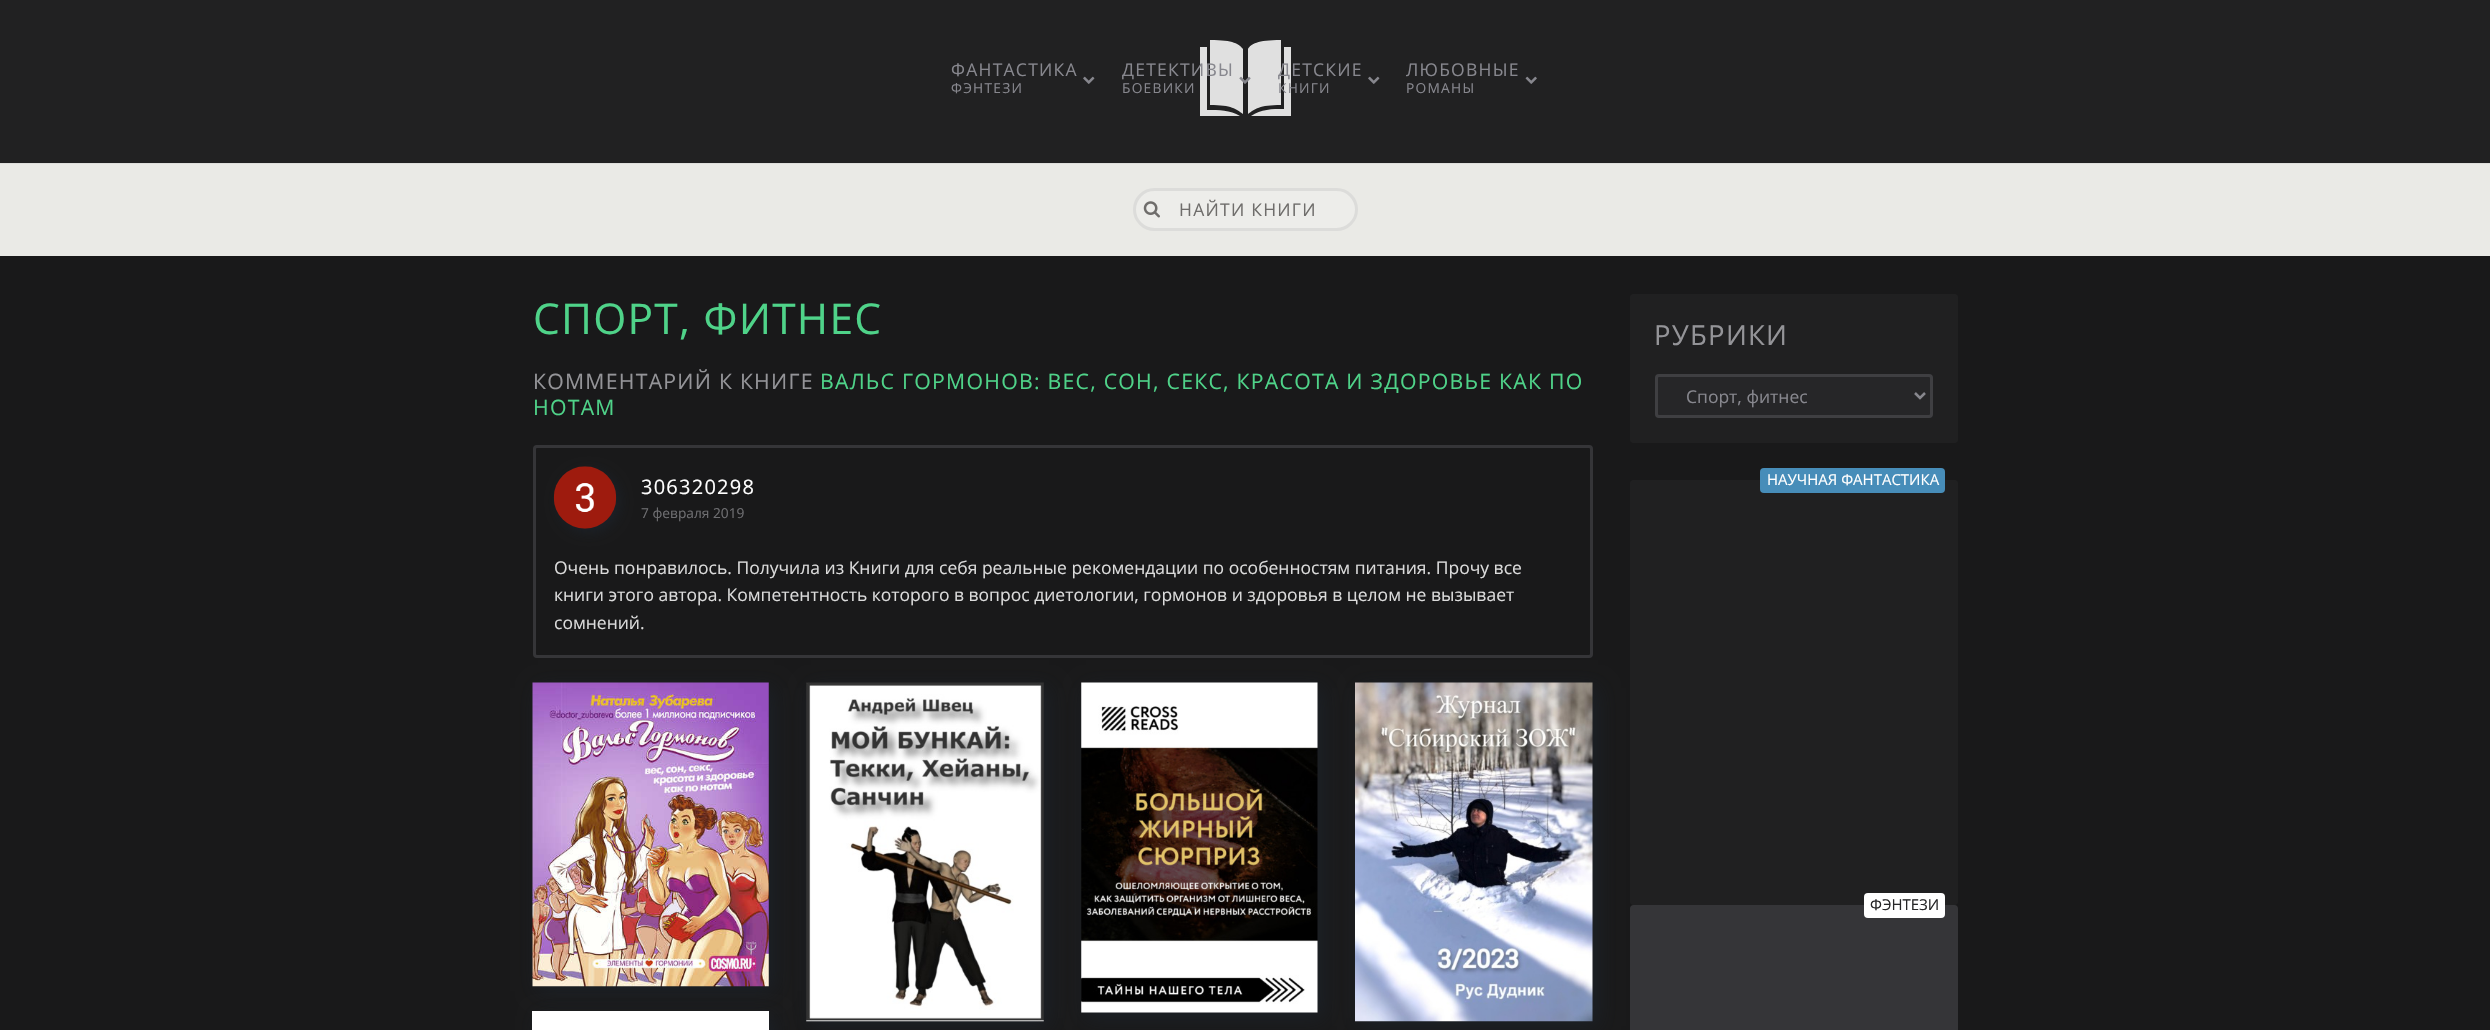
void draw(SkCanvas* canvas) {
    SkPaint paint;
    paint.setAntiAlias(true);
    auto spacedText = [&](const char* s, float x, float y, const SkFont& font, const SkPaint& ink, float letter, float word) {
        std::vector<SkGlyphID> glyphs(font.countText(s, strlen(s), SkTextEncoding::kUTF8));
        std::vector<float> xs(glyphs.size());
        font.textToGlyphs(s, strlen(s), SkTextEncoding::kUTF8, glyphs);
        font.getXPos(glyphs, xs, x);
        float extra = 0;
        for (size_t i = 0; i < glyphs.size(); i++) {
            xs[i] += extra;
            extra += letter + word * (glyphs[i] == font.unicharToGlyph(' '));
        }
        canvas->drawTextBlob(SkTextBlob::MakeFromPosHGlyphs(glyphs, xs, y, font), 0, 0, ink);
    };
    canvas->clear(0xFFEAEAE6);
    paint.setColor(0xFF212122);
    canvas->drawRect(SkRect::MakeXYWH(0, 0, 2490, 163), paint);
    paint.setColor(0xFFE0E0E0);
    canvas->drawPath(SkPathBuilder().moveTo(1210, 40).lineTo(1210, 105).cubicTo(1232, 105, 1236, 109, 1243, 114).lineTo(1243, 49).cubicTo(1239, 44, 1234, 40, 1210, 40).close().moveTo(1281, 40).cubicTo(1257, 40, 1251, 44, 1248, 49).lineTo(1248, 114).cubicTo(1255, 109, 1259, 105, 1281, 105).close().moveTo(1200, 47).lineTo(1200, 116).lineTo(1240, 116).cubicTo(1230, 110, 1219, 110, 1207, 110).lineTo(1207, 47).close().moveTo(1284, 47).lineTo(1284, 109).cubicTo(1272, 109, 1261, 109, 1251, 116).lineTo(1291, 116).lineTo(1291, 47).close().detach(), paint);
    SkFont font1(fontMgr->matchFamilyStyle("Open Sans", SkFontStyle::Normal()), 17.5f);
    font1.setSubpixel(true);
    paint.setColor(0xFF87878E);
    spacedText("ФАНТАСТИКА", 951, 76, font1, paint, 1.25f, 0);
    canvas->drawImageRect(SkImages::DeferredFromEncodedData(SkData::MakeFromFileName("img1.png")), SkRect::MakeXYWH(1083, 76, 12, 8), SkSamplingOptions());
    SkFont font2(fontMgr->matchFamilyStyle("Open Sans", SkFontStyle::Normal()), 13.75f);
    font2.setSubpixel(true);
    spacedText("ФЭНТЕЗИ", 951, 93, font2, paint, 1.25f, 0);
    spacedText("ДЕТЕКТИВЫ", 1122, 76, font1, paint, 1.25f, 0);
    canvas->drawImageRect(SkImages::DeferredFromEncodedData(SkData::MakeFromFileName("img2.png")), SkRect::MakeXYWH(1239, 76, 12, 8), SkSamplingOptions());
    spacedText("БОЕВИКИ", 1122, 93, font2, paint, 1.25f, 0);
    spacedText("ДЕТСКИЕ", 1278, 76, font1, paint, 1.25f, 0);
    canvas->drawImageRect(SkImages::DeferredFromEncodedData(SkData::MakeFromFileName("img1.png")), SkRect::MakeXYWH(1368, 76, 12, 8), SkSamplingOptions());
    spacedText("КНИГИ", 1278, 93, font2, paint, 1.25f, 0);
    spacedText("ЛЮБОВНЫЕ", 1406, 76, font1, paint, 1.25f, 0);
    canvas->drawImageRect(SkImages::DeferredFromEncodedData(SkData::MakeFromFileName("img3.png")), SkRect::MakeXYWH(1525, 76, 12, 8), SkSamplingOptions());
    spacedText("РОМАНЫ", 1406, 93, font2, paint, 1.25f, 0);
    paint.setColor(0xFFDEDEDB);
    canvas->drawRect(SkRect::MakeXYWH(0, 163, 2490, 1), paint);
    paint.setColor(0xFFEDEDEA);
    canvas->drawRoundRect(SkRect::MakeXYWH(1134.5f, 189.5f, 222, 40), 20, 20, paint);
    paint.setStyle(SkPaint::kStroke_Style);
    paint.setStrokeWidth(3);
    paint.setColor(0xFFDCDCDA);
    canvas->drawRoundRect(SkRect::MakeXYWH(1134.5f, 189.5f, 222, 40), 20, 20, paint);
    canvas->drawImageRect(SkImages::DeferredFromEncodedData(SkData::MakeFromFileName("img4.png")), SkRect::MakeXYWH(1143, 201, 17, 17), SkSamplingOptions());
    paint.setStyle(SkPaint::kFill_Style);
    paint.setColor(0xFF6F6D6B);
    spacedText("НАЙТИ КНИГИ", 1179, 216, font1, paint, 1.25f, 0);
    paint.setColor(0xFF19191A);
    canvas->drawRect(SkRect::MakeXYWH(0, 256, 2490, 774), paint);
    SkFont font3(fontMgr->matchFamilyStyle("Open Sans", SkFontStyle::Normal()), 42.5f);
    font3.setSubpixel(true);
    paint.setColor(0xFF4FD389);
    spacedText("СПОРТ, ФИТНЕС", 533, 334, font3, paint, 1.25f, 0);
    SkFont font4(fontMgr->matchFamilyStyle("Open Sans", SkFontStyle::Normal()), 21.25f);
    font4.setSubpixel(true);
    paint.setColor(0xFF949498);
    spacedText("КОММЕНТАРИЙ К КНИГЕ", 533, 389, font4, paint, 1.25f, 0);
    paint.setColor(0xFF4FD389);
    spacedText("ВАЛЬС ГОРМОНОВ: ВЕС, СОН, СЕКС, КРАСОТА И ЗДОРОВЬЕ КАК ПО", 820, 389, font4, paint, 1.25f, 0);
    spacedText("НОТАМ", 533, 415, font4, paint, 1.25f, 0);
    paint.setStyle(SkPaint::kStroke_Style);
    paint.setColor(0xFF353538);
    canvas->drawRoundRect(SkRect::MakeXYWH(534.5f, 446.5f, 1057, 210), 2.5f, 2.5f, paint);
    paint.setStyle(SkPaint::kFill_Style);
    paint.setColor(0x991D252F);
    paint.setMaskFilter(SkMaskFilter::MakeBlur(kNormal_SkBlurStyle, 6));
    canvas->drawRoundRect(SkRect::MakeXYWH(558, 470, 62, 63), 31, 31, paint);
    paint.setMaskFilter(nullptr);
    canvas->drawImageRect(SkImages::DeferredFromEncodedData(SkData::MakeFromFileName("img5.png")), SkRect::MakeXYWH(553, 466, 64, 63), SkSamplingOptions());
    SkFont font5(fontMgr->matchFamilyStyle("Open Sans", SkFontStyle::Normal()), 20);
    font5.setSubpixel(true);
    paint.setColor(0xFFFFFFFF);
    spacedText("306320298", 641, 494, font5, paint, 1.25f, 0);
    paint.setColor(0xFF6E6E71);
    canvas->drawString("7 февраля 2019", 641, 518, font2, paint);
    paint.setColor(0xFFDBDBDB);
    canvas->drawString("Очень понравилось. Получила из Книги для себя реальные рекомендации по особенностям питания. Прочу все", 554, 574, font1, paint);
    canvas->drawString("книги этого автора. Компетентность которого в вопрос диетологии, гормонов и здоровья в целом не вызывает", 554, 601, font1, paint);
    canvas->drawString("сомнений.", 554, 629, font1, paint);
    paint.setColor(0x991D252F);
    paint.setMaskFilter(SkMaskFilter::MakeBlur(kNormal_SkBlurStyle, 9.5f));
    canvas->drawRect(SkRect::MakeXYWH(538, 688, 236, 303), paint);
    paint.setMaskFilter(nullptr);
    canvas->drawImageRect(SkImages::DeferredFromEncodedData(SkData::MakeFromFileName("img6.png")), SkRect::MakeXYWH(532, 682, 237, 305), SkSamplingOptions());
    paint.setMaskFilter(SkMaskFilter::MakeBlur(kNormal_SkBlurStyle, 9.5f));
    canvas->drawRect(SkRect::MakeXYWH(538, 1016, 236, 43), paint);
    paint.setMaskFilter(nullptr);
    paint.setColor(0xFFFFFFFF);
    canvas->drawRect(SkRect::MakeXYWH(532, 1011, 237, 19), paint);
    paint.setColor(0x991D252F);
    paint.setMaskFilter(SkMaskFilter::MakeBlur(kNormal_SkBlurStyle, 9.5f));
    canvas->drawRect(SkRect::MakeXYWH(811, 688, 238, 338), paint);
    paint.setMaskFilter(nullptr);
    canvas->drawImageRect(SkImages::DeferredFromEncodedData(SkData::MakeFromFileName("img7.png")), SkRect::MakeXYWH(806, 682, 238, 340), SkSamplingOptions());
    paint.setMaskFilter(SkMaskFilter::MakeBlur(kNormal_SkBlurStyle, 9.5f));
    canvas->drawRect(SkRect::MakeXYWH(1086, 688, 237, 330), paint);
    paint.setMaskFilter(nullptr);
    canvas->drawImageRect(SkImages::DeferredFromEncodedData(SkData::MakeFromFileName("img8.png")), SkRect::MakeXYWH(1081, 682, 237, 331), SkSamplingOptions());
    paint.setMaskFilter(SkMaskFilter::MakeBlur(kNormal_SkBlurStyle, 9.5f));
    canvas->drawRect(SkRect::MakeXYWH(1360, 688, 238, 338), paint);
    paint.setMaskFilter(nullptr);
    canvas->drawImageRect(SkImages::DeferredFromEncodedData(SkData::MakeFromFileName("img9.png")), SkRect::MakeXYWH(1355, 682, 238, 340), SkSamplingOptions());
    paint.setColor(0xFF202021);
    canvas->drawRoundRect(SkRect::MakeXYWH(1630, 294, 328, 149), 4, 4, paint);
    SkFont font6(fontMgr->matchFamilyStyle("Open Sans", SkFontStyle::Normal()), 27.5f);
    font6.setSubpixel(true);
    paint.setColor(0xFF949498);
    spacedText("РУБРИКИ", 1654, 345, font6, paint, 1.25f, 0);
    paint.setColor(0xFF262628);
    canvas->drawRoundRect(SkRect::MakeXYWH(1656.5f, 375.5f, 275, 41), 2.5f, 2.5f, paint);
    paint.setStyle(SkPaint::kStroke_Style);
    paint.setColor(0xFF3F3F42);
    canvas->drawRoundRect(SkRect::MakeXYWH(1656.5f, 375.5f, 275, 41), 2.5f, 2.5f, paint);
    paint.setStrokeWidth(2.5f);
    paint.setColor(0xFF87878E);
    canvas->drawPath(SkPathBuilder().moveTo(1915, 393).lineTo(1920, 398).lineTo(1925, 393).detach(), paint);
    paint.setStyle(SkPaint::kFill_Style);
    canvas->drawString("Спорт, фитнес", 1686, 403, font1, paint);
    paint.setColor(0xFF202021);
    canvas->drawRoundRect(SkRect::MakeXYWH(1630, 480, 328, 425), 4, 4, paint);
    paint.setColor(0xFF478DB9);
    canvas->drawRoundRect(SkRect::MakeXYWH(1760, 468, 185, 25), 4, 4, paint);
    SkFont font7(fontMgr->matchFamilyStyle("Open Sans", SkFontStyle::Normal()), 15);
    font7.setSubpixel(true);
    paint.setColor(0xFFFFFFFF);
    canvas->drawString("НАУЧНАЯ ФАНТАСТИКА", 1767, 485, font7, paint);
    paint.setColor(0xFF353538);
    canvas->drawRoundRect(SkRect::MakeXYWH(1630, 905, 328, 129), 4, 4, paint);
    paint.setColor(0xFFFFFFFF);
    canvas->drawRoundRect(SkRect::MakeXYWH(1864, 893, 81, 25), 4, 4, paint);
    paint.setColor(0xFF262627);
    canvas->drawString("ФЭНТЕЗИ", 1870, 910, font7, paint);
}
